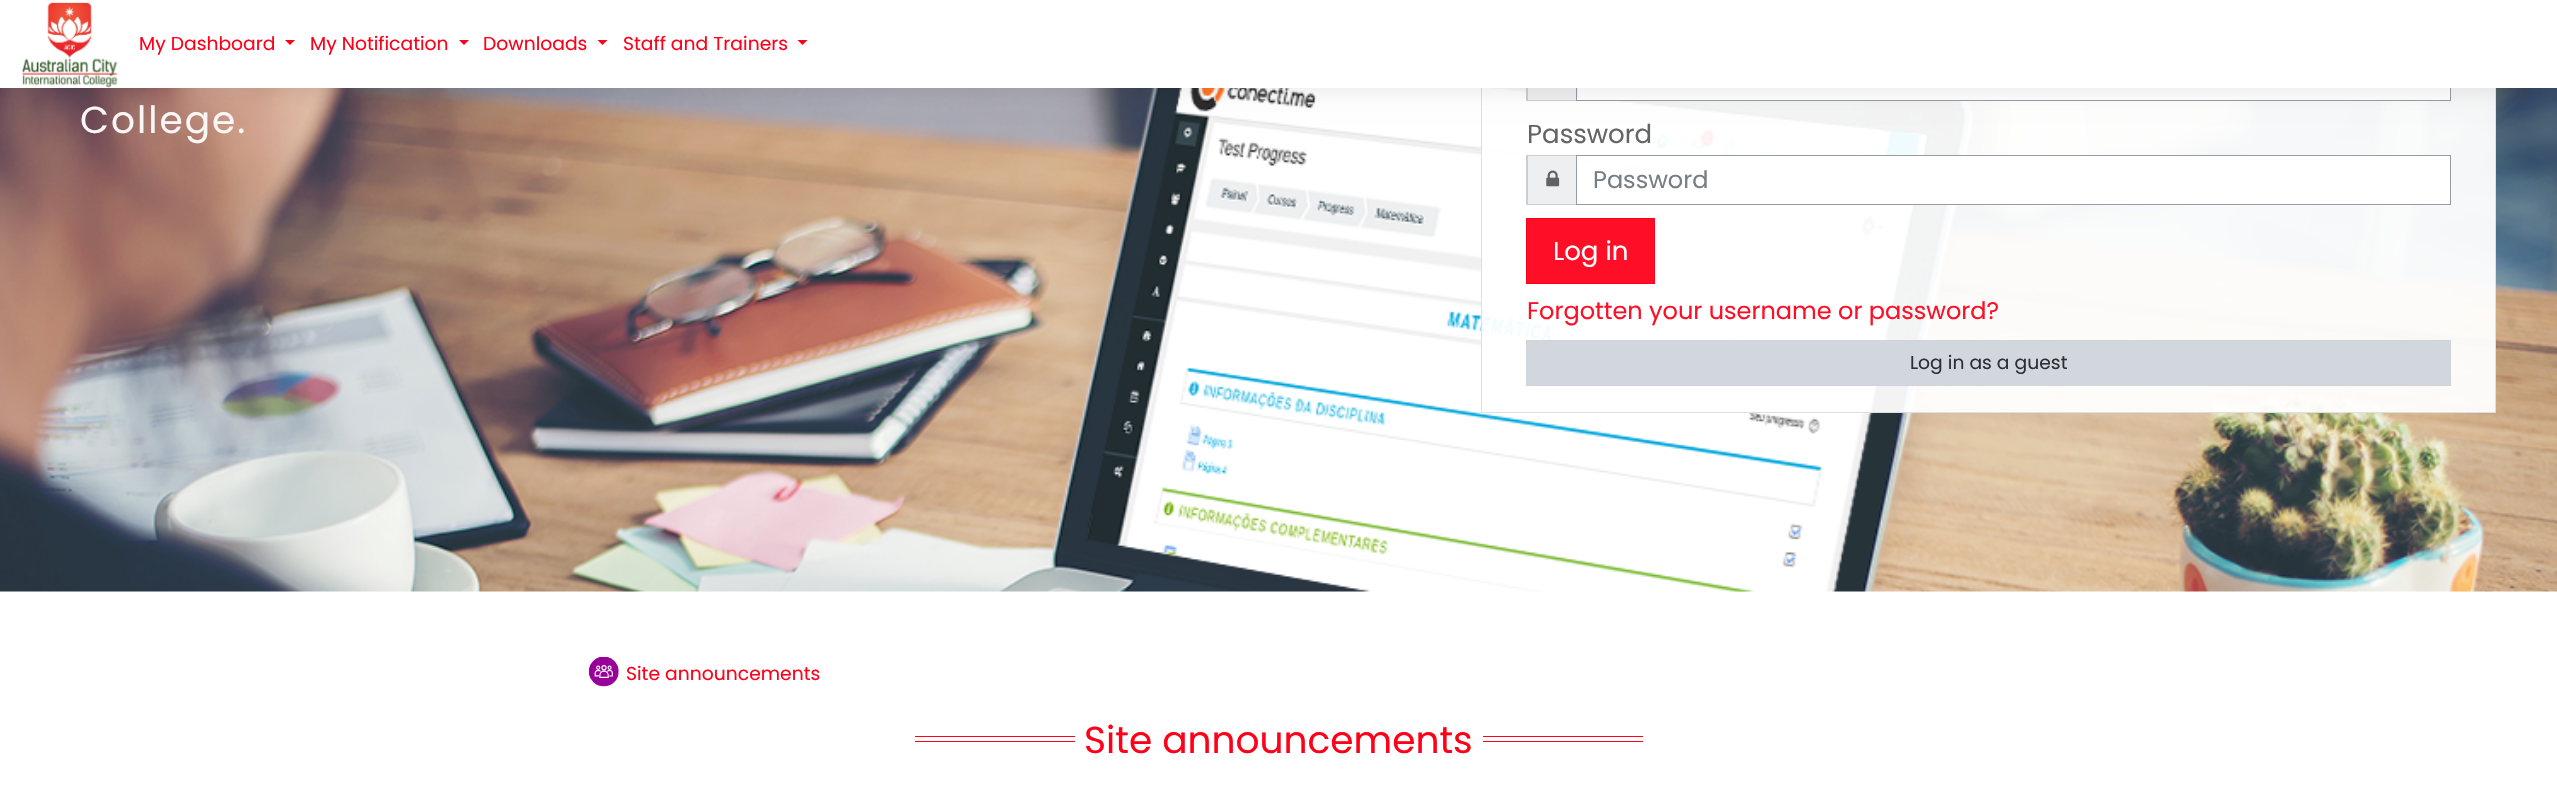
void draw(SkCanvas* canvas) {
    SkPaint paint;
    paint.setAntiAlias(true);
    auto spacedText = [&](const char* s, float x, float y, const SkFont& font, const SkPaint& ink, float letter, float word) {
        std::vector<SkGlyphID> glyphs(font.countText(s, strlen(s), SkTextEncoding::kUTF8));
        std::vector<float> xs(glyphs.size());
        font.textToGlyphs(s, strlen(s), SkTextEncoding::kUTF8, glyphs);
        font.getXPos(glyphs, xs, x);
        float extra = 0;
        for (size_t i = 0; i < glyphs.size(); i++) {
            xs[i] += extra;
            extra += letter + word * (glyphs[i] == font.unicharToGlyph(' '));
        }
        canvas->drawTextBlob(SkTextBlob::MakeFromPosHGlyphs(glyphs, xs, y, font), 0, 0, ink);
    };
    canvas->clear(0xFFFFFFFF);
    canvas->drawImageRect(SkImages::DeferredFromEncodedData(SkData::MakeFromFileName("img2.png")), SkRect::MakeXYWH(0, 88, 2557, 504), SkSamplingOptions());
    paint.setColor(0xF0FFFFFF);
    canvas->drawRect(SkRect::MakeXYWH(1481, 88, 1015, 325), paint);
    paint.setStyle(SkPaint::kStroke_Style);
    paint.setStrokeWidth(1);
    paint.setColor(0xF0D7DFE3);
    canvas->drawRect(SkRect::MakeXYWH(1481.5f, -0.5f, 1014, 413), paint);
    paint.setStyle(SkPaint::kFill_Style);
    paint.setColor(0xF0ECEEEF);
    canvas->drawRect(SkRect::MakeXYWH(1526, 88, 50, 13), paint);
    paint.setColor(0xFFCCCDCE);
    canvas->drawPath(SkPathBuilder().moveTo(1576, 101).lineTo(1526, 101).lineTo(1528, 100).lineTo(1576, 100).close().detach(), paint);
    paint.setColor(0x24000000);
    canvas->drawPath(SkPathBuilder().moveTo(1526, 101).lineTo(1526, 51).lineTo(1528, 52).lineTo(1528, 100).close().detach(), paint);
    paint.setColor(0xF0FFFFFF);
    canvas->drawRect(SkRect::MakeXYWH(1578, 88, 872, 12), paint);
    paint.setStyle(SkPaint::kStroke_Style);
    paint.setColor(0xF08F959E);
    canvas->drawRect(SkRect::MakeXYWH(1576.5f, 51.5f, 874, 49), paint);
    paint.setStyle(SkPaint::kFill_Style);
    paint.setColor(0x1A000000);
    paint.setMaskFilter(SkMaskFilter::MakeBlur(kNormal_SkBlurStyle, 12.5f));
    canvas->drawRect(SkRect::MakeXYWH(0, 0, 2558, 88), paint);
    paint.setMaskFilter(nullptr);
    paint.setColor(0xFFFFFFFF);
    canvas->drawRect(SkRect::MakeXYWH(0, 0, 2557, 88), paint);
    canvas->drawImageRect(SkImages::DeferredFromEncodedData(SkData::MakeFromFileName("img1.png")), SkRect::MakeXYWH(22, 2, 96, 86), SkSamplingOptions());
    SkFont font1(fontMgr->matchFamilyStyle("Poppins", SkFontStyle::Normal()), 18.75f);
    font1.setSubpixel(true);
    paint.setColor(0xFFFF0019);
    canvas->drawString("My Dashboard", 139, 50, font1, paint);
    canvas->drawPath(SkPathBuilder().moveTo(285, 40).lineTo(295, 40).lineTo(290, 45).close().detach(), paint);
    canvas->drawString("My Notification", 310, 50, font1, paint);
    canvas->drawPath(SkPathBuilder().moveTo(459, 40).lineTo(469, 40).lineTo(464, 45).close().detach(), paint);
    canvas->drawString("Downloads", 483, 50, font1, paint);
    canvas->drawPath(SkPathBuilder().moveTo(597.5f, 40).lineTo(607.5f, 40).lineTo(602.5f, 45).close().detach(), paint);
    canvas->drawString("Staff and Trainers", 623, 50, font1, paint);
    canvas->drawPath(SkPathBuilder().moveTo(797.5f, 40).lineTo(807.5f, 40).lineTo(802.5f, 45).close().detach(), paint);
    SkFont font2(fontMgr->matchFamilyStyle("Poppins", SkFontStyle::Normal()), 37.5f);
    font2.setSubpixel(true);
    paint.setColor(0xFFFAF7F6);
    spacedText("College.", 80, 133, font2, paint, 2, 0);
    SkFont font3(fontMgr->matchFamilyStyle("Poppins", SkFontStyle::Normal()), 26);
    font3.setSubpixel(true);
    paint.setColor(0xFF646464);
    canvas->drawString("Password", 1527, 143, font3, paint);
    paint.setColor(0xFFEDEFF0);
    canvas->drawRect(SkRect::MakeXYWH(1526, 155, 50, 50), paint);
    paint.setColor(0xFFCCCDCE);
    canvas->drawPath(SkPathBuilder().moveTo(1526, 155).lineTo(1576, 155).lineTo(1576, 156).lineTo(1528, 156).close().moveTo(1576, 205).lineTo(1526, 205).lineTo(1528, 204).lineTo(1576, 204).close().detach(), paint);
    paint.setColor(0x24000000);
    canvas->drawPath(SkPathBuilder().moveTo(1526, 205).lineTo(1526, 155).lineTo(1528, 156).lineTo(1528, 204).close().detach(), paint);
    canvas->drawImageRect(SkImages::DeferredFromEncodedData(SkData::MakeFromFileName("img3.png")), SkRect::MakeXYWH(1546, 170, 14, 17), SkSamplingOptions());
    paint.setColor(0xF0FFFFFF);
    canvas->drawRect(SkRect::MakeXYWH(1726, 156, 724, 48), paint);
    paint.setStyle(SkPaint::kStroke_Style);
    paint.setColor(0xF08F959E);
    canvas->drawRect(SkRect::MakeXYWH(1576.5f, 155.5f, 874, 49), paint);
    SkFont font4(fontMgr->matchFamilyStyle("Poppins", SkFontStyle::Normal()), 24);
    font4.setSubpixel(true);
    paint.setStyle(SkPaint::kFill_Style);
    paint.setColor(0xFF757D85);
    canvas->drawString("Password", 1593, 188, font4, paint);
    paint.setColor(0xFFFF0F27);
    canvas->drawRect(SkRect::MakeXYWH(1526.5f, 218.5f, 128, 65), paint);
    paint.setStyle(SkPaint::kStroke_Style);
    paint.setColor(0xFFFF011A);
    canvas->drawRect(SkRect::MakeXYWH(1526.5f, 218.5f, 128, 65), paint);
    paint.setStyle(SkPaint::kFill_Style);
    paint.setColor(0xFFFFFFFF);
    canvas->drawString("Log in", 1553, 260, font3, paint);
    paint.setColor(0xFFFF0F27);
    canvas->drawString("Forgotten your username or password?", 1527, 319, font4, paint);
    paint.setColor(0xF0CED4DA);
    canvas->drawRect(SkRect::MakeXYWH(1526.5f, 340.5f, 924, 45), paint);
    paint.setStyle(SkPaint::kStroke_Style);
    paint.setColor(0xFFCED4DA);
    canvas->drawRect(SkRect::MakeXYWH(1526.5f, 340.5f, 924, 45), paint);
    paint.setStyle(SkPaint::kFill_Style);
    paint.setColor(0xFF2C3034);
    canvas->drawString("Log in as a guest", 1910, 369, font1, paint);
    canvas->drawImageRect(SkImages::DeferredFromEncodedData(SkData::MakeFromFileName("img4.png")), SkRect::MakeXYWH(589, 657, 30, 30), SkSamplingOptions());
    paint.setColor(0xFFFF0019);
    canvas->drawString("Site announcements", 626, 680, font1, paint);
    canvas->drawRect(SkRect::MakeXYWH(915, 736, 160, 1), paint);
    canvas->drawRect(SkRect::MakeXYWH(915, 741, 160, 1), paint);
    canvas->drawString("Site announcements", 1084, 753, font2, paint);
    canvas->drawRect(SkRect::MakeXYWH(1483, 736, 160, 1), paint);
    canvas->drawRect(SkRect::MakeXYWH(1483, 741, 160, 1), paint);
}
